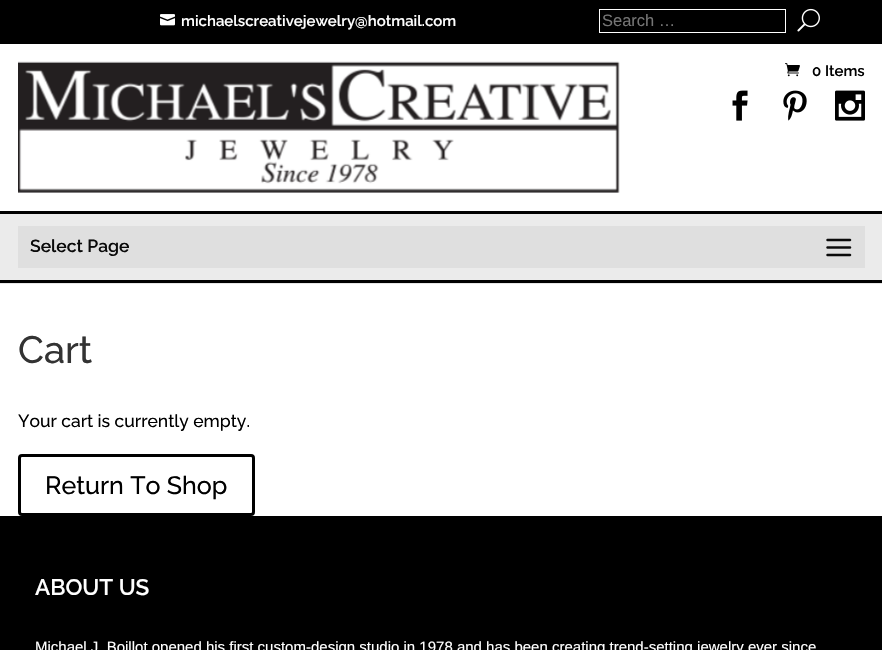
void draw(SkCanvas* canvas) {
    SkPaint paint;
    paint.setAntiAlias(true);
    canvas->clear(0xFFFFFFFF);
    paint.setColor(0xFF000000);
    canvas->drawRect(SkRect::MakeXYWH(0, 0, 882, 44), paint);
    canvas->drawImageRect(SkImages::DeferredFromEncodedData(SkData::MakeFromFileName("img1.png")), SkRect::MakeXYWH(160, 14, 15, 12), SkSamplingOptions());
    SkFont font1(fontMgr->matchFamilyStyle("Raleway", SkFontStyle(600, SkFontStyle::kNormal_Width, SkFontStyle::kUpright_Slant)), 15);
    font1.setSubpixel(true);
    paint.setColor(0xFFFFFFFF);
    canvas->drawString("michaelscreativejewelry@hotmail.com", 181, 26, font1, paint);
    paint.setStyle(SkPaint::kStroke_Style);
    paint.setStrokeWidth(1);
    canvas->drawRect(SkRect::MakeXYWH(599.5f, 9.5f, 186, 23), paint);
    SkFont font2(fontMgr->matchFamilyStyle("Liberation Sans", SkFontStyle::Normal()), 16.5f);
    font2.setSubpixel(true);
    paint.setStyle(SkPaint::kFill_Style);
    paint.setColor(0xFF757575);
    canvas->drawString("Search …", 602, 26, font2, paint);
    canvas->drawImageRect(SkImages::DeferredFromEncodedData(SkData::MakeFromFileName("img2.png")), SkRect::MakeXYWH(797, 8, 23, 24), SkSamplingOptions());
    canvas->drawImageRect(SkImages::DeferredFromEncodedData(SkData::MakeFromFileName("img3.png")), SkRect::MakeXYWH(785, 63, 15, 14), SkSamplingOptions());
    paint.setColor(0xFF000000);
    canvas->drawString("0 Items", 812, 76, font1, paint);
    paint.setColor(0xFFE6E6E6);
    canvas->drawPath(SkPathBuilder().moveTo(0, 282).lineTo(0, 284).lineTo(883, 284).lineTo(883, 45).lineTo(882, 45).lineTo(882, 282).close().detach(), paint);
    canvas->drawImageRect(SkImages::DeferredFromEncodedData(SkData::MakeFromFileName("img4.png")), SkRect::MakeXYWH(18, 61, 602, 132), SkSamplingOptions());
    canvas->drawImageRect(SkImages::DeferredFromEncodedData(SkData::MakeFromFileName("img5.png")), SkRect::MakeXYWH(732, 90, 16, 31), SkSamplingOptions());
    canvas->drawImageRect(SkImages::DeferredFromEncodedData(SkData::MakeFromFileName("img6.png")), SkRect::MakeXYWH(783, 90, 24, 31), SkSamplingOptions());
    canvas->drawImageRect(SkImages::DeferredFromEncodedData(SkData::MakeFromFileName("img7.png")), SkRect::MakeXYWH(835, 90, 30, 31), SkSamplingOptions());
    paint.setColor(0xFFEBEBEB);
    canvas->drawRect(SkRect::MakeXYWH(0, 214, 882, 66), paint);
    paint.setColor(0xFF000000);
    canvas->drawRect(SkRect::MakeXYWH(0, 211, 882, 3), paint);
    canvas->drawRect(SkRect::MakeXYWH(0, 280, 882, 3), paint);
    paint.setColor(0xFFDFDFDF);
    canvas->drawRect(SkRect::MakeXYWH(18, 226, 847, 42), paint);
    SkFont font3(fontMgr->matchFamilyStyle("Raleway", SkFontStyle(600, SkFontStyle::kNormal_Width, SkFontStyle::kUpright_Slant)), 17.5f);
    font3.setSubpixel(true);
    paint.setColor(0xFF0A0A0A);
    canvas->drawString("Select Page", 30, 252, font3, paint);
    canvas->drawImageRect(SkImages::DeferredFromEncodedData(SkData::MakeFromFileName("img8.png")), SkRect::MakeXYWH(826, 238, 26, 19), SkSamplingOptions());
    SkFont font4(fontMgr->matchFamilyStyle("Raleway", SkFontStyle(500, SkFontStyle::kNormal_Width, SkFontStyle::kUpright_Slant)), 38);
    font4.setSubpixel(true);
    paint.setColor(0xFF333333);
    canvas->drawString("Cart", 18, 363, font4, paint);
    SkFont font5(fontMgr->matchFamilyStyle("Raleway", SkFontStyle(500, SkFontStyle::kNormal_Width, SkFontStyle::kUpright_Slant)), 17.5f);
    font5.setSubpixel(true);
    paint.setColor(0xFF000000);
    canvas->drawString("Your cart is currently empty.", 18, 427, font5, paint);
    paint.setStyle(SkPaint::kStroke_Style);
    paint.setStrokeWidth(3);
    canvas->drawRoundRect(SkRect::MakeXYWH(19.5f, 455.5f, 234, 59), 2.5f, 2.5f, paint);
    SkFont font6(fontMgr->matchFamilyStyle("Raleway", SkFontStyle(500, SkFontStyle::kNormal_Width, SkFontStyle::kUpright_Slant)), 25);
    font6.setSubpixel(true);
    paint.setStyle(SkPaint::kFill_Style);
    canvas->drawString("Return To Shop", 45, 494, font6, paint);
    canvas->drawRect(SkRect::MakeXYWH(0, 516, 882, 134), paint);
    SkFont font7(fontMgr->matchFamilyStyle("Raleway", SkFontStyle(600, SkFontStyle::kNormal_Width, SkFontStyle::kUpright_Slant)), 22.5f);
    font7.setSubpixel(true);
    paint.setColor(0xFFFFFFFF);
    canvas->drawString("ABOUT US", 35, 595, font7, paint);
    SkFont font8(fontMgr->matchFamilyStyle("Liberation Sans", SkFontStyle::Normal()), 15);
    font8.setSubpixel(true);
    canvas->drawString("Michael J. Boillot opened his first custom-design studio in 1978 and has been creating trend-setting jewelry ever since", 35, 652, font8, paint);
}
